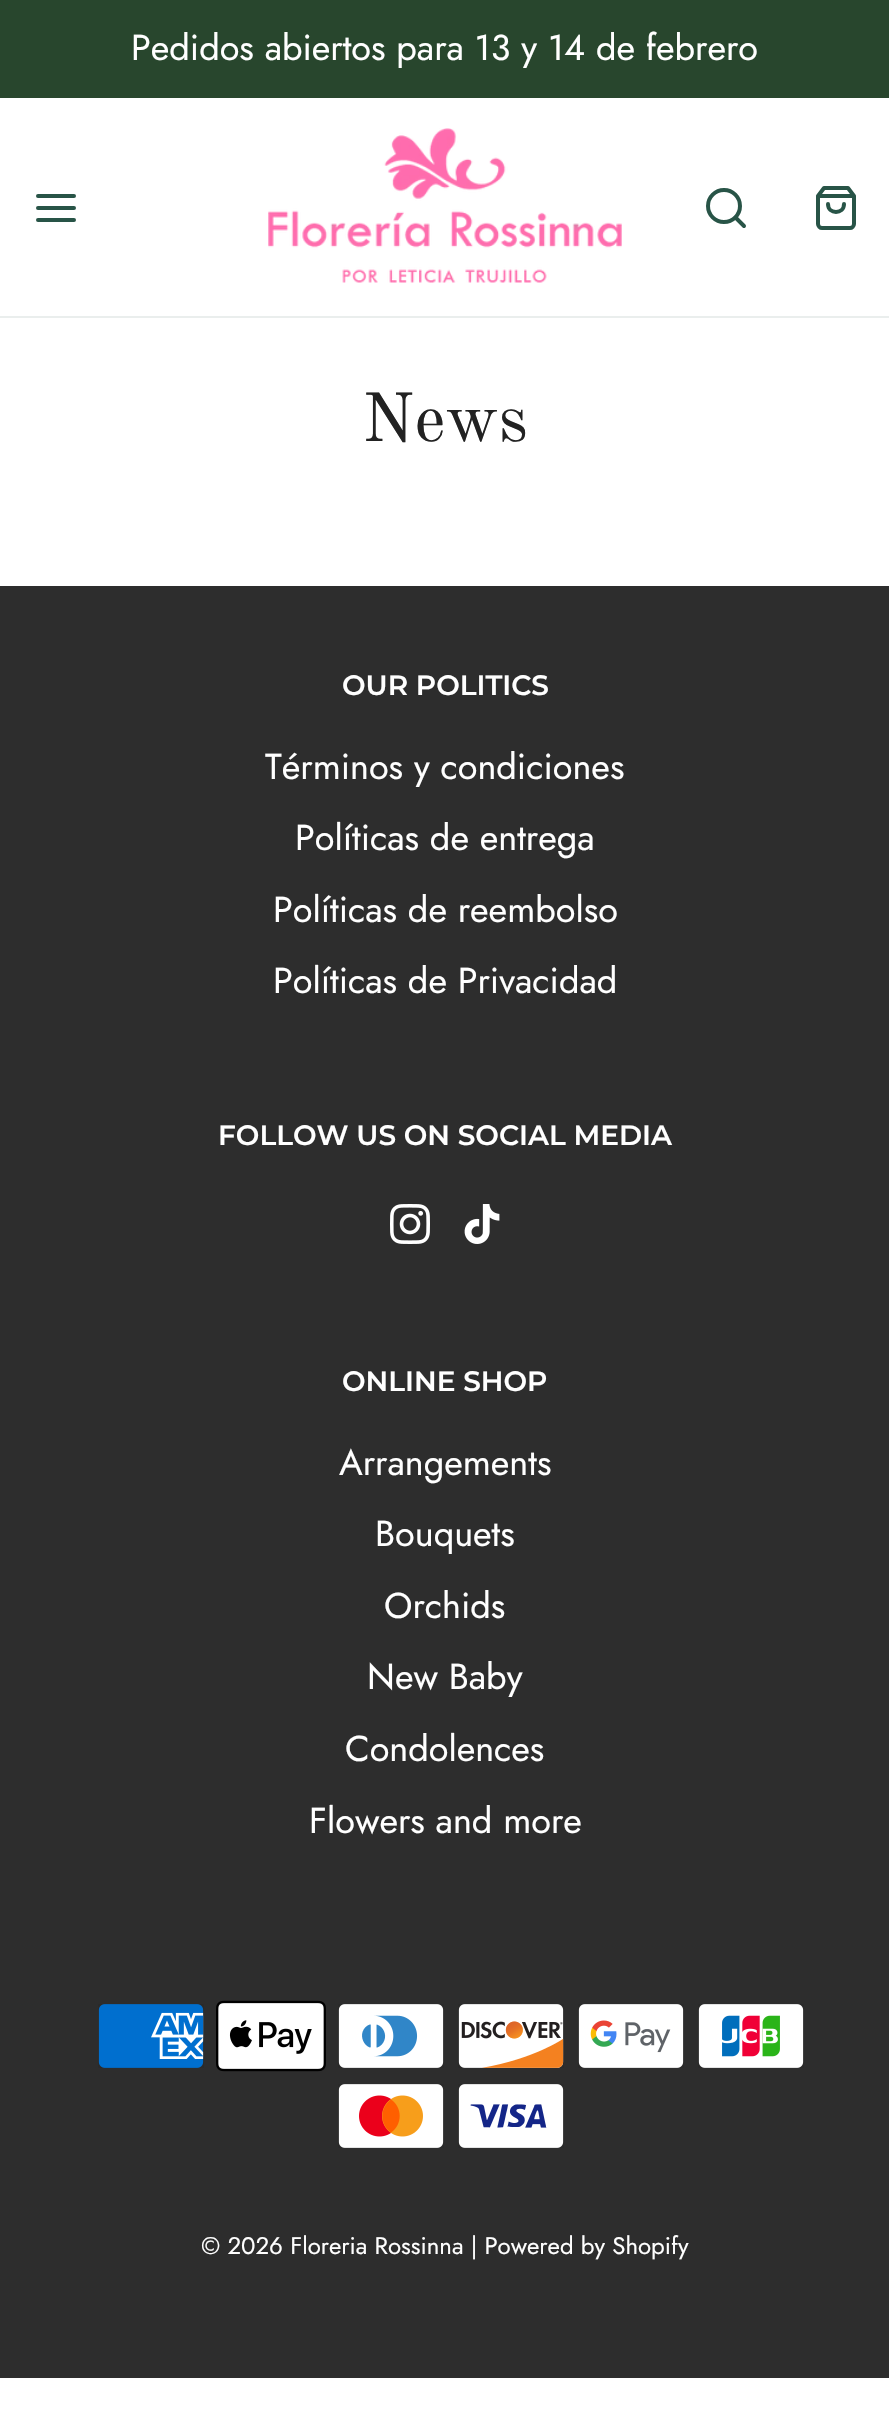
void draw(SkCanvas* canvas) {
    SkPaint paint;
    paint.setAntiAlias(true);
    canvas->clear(0xFFFFFFFF);
    paint.setColor(0xFF28462D);
    canvas->drawRect(SkRect::MakeXYWH(0, 0, 889, 98), paint);
    SkFont font1(fontMgr->matchFamilyStyle("Jost", SkFontStyle::Normal()), 36);
    font1.setSubpixel(true);
    paint.setColor(0xFFFFFFFF);
    canvas->drawString("Pedidos abiertos para 13 y 14 de febrero", 131, 60, font1, paint);
    paint.setColor(0xFFEAEEED);
    canvas->drawRect(SkRect::MakeXYWH(0, 316, 889, 2), paint);
    paint.setStyle(SkPaint::kStroke_Style);
    paint.setStrokeWidth(4);
    paint.setStrokeCap(SkPaint::kRound_Cap);
    paint.setStrokeJoin(SkPaint::kRound_Join);
    paint.setColor(0xFF285447);
    canvas->drawPath(SkPathBuilder().moveTo(38, 208).lineTo(74, 208).moveTo(38, 196).lineTo(74, 196).moveTo(38, 220).lineTo(74, 220).detach(), paint);
    canvas->drawImageRect(SkImages::DeferredFromEncodedData(SkData::MakeFromFileName("img1.png")), SkRect::MakeXYWH(268, 128, 354, 155), SkSamplingOptions());
    paint.setStrokeCap(SkPaint::kButt_Cap);
    paint.setStrokeJoin(SkPaint::kMiter_Join);
    canvas->drawCircle(724, 206, 16, paint);
    paint.setStrokeCap(SkPaint::kRound_Cap);
    paint.setStrokeJoin(SkPaint::kRound_Join);
    canvas->drawPath(SkPathBuilder().moveTo(744, 226).lineTo(735.5f, 217.5f).detach(), paint);
    canvas->drawPath(SkPathBuilder().moveTo(824, 188).lineTo(818, 196).lineTo(818, 224).cubicTo(818, 226, 820, 228, 822, 228).lineTo(850, 228).cubicTo(852, 228, 854, 226, 854, 224).lineTo(854, 196).lineTo(848, 188).close().moveTo(818, 196).lineTo(854, 196).moveTo(844, 204).cubicTo(844, 214.5f, 828, 214.5f, 828, 204).detach(), paint);
    SkFont font2(fontMgr->matchFamilyStyle("Old Standard TT", SkFontStyle::Normal()), 68);
    font2.setSubpixel(true);
    paint.setStyle(SkPaint::kFill_Style);
    paint.setColor(0xFF222222);
    canvas->drawString("News", 362, 441, font2, paint);
    paint.setColor(0xFF2D2D2D);
    canvas->drawRect(SkRect::MakeXYWH(0, 586, 889, 1792), paint);
    SkFont font3(fontMgr->matchFamilyStyle("Montserrat", SkFontStyle(600, SkFontStyle::kNormal_Width, SkFontStyle::kUpright_Slant)), 28);
    font3.setSubpixel(true);
    paint.setColor(0xFFFFFFFF);
    canvas->drawString("OUR POLITICS", 342, 695, font3, paint);
    canvas->drawString("Términos y condiciones", 265, 779, font1, paint);
    canvas->drawString("Políticas de entrega", 295, 850, font1, paint);
    canvas->drawString("Políticas de reembolso", 273, 922, font1, paint);
    canvas->drawString("Políticas de Privacidad", 273, 993, font1, paint);
    canvas->drawString("FOLLOW US ON SOCIAL MEDIA", 218, 1145, font3, paint);
    canvas->drawImageRect(SkImages::DeferredFromEncodedData(SkData::MakeFromFileName("img2.png")), SkRect::MakeXYWH(390, 1204, 40, 40), SkSamplingOptions());
    canvas->drawImageRect(SkImages::DeferredFromEncodedData(SkData::MakeFromFileName("img3.png")), SkRect::MakeXYWH(464, 1204, 36, 40), SkSamplingOptions());
    canvas->drawString("ONLINE SHOP", 342, 1391, font3, paint);
    canvas->drawString("Arrangements", 339, 1475, font1, paint);
    canvas->drawString("Bouquets", 375, 1546, font1, paint);
    canvas->drawString("Orchids", 384, 1618, font1, paint);
    canvas->drawString("New Baby", 367, 1689, font1, paint);
    canvas->drawString("Condolences", 345, 1761, font1, paint);
    canvas->drawString("Flowers and more", 309, 1833, font1, paint);
    canvas->drawImageRect(SkImages::DeferredFromEncodedData(SkData::MakeFromFileName("img4.png")), SkRect::MakeXYWH(98, 2004, 106, 64), SkSamplingOptions());
    canvas->drawImageRect(SkImages::DeferredFromEncodedData(SkData::MakeFromFileName("img5.png")), SkRect::MakeXYWH(216, 2000, 110, 72), SkSamplingOptions());
    canvas->drawImageRect(SkImages::DeferredFromEncodedData(SkData::MakeFromFileName("img6.png")), SkRect::MakeXYWH(338, 2004, 106, 64), SkSamplingOptions());
    canvas->drawImageRect(SkImages::DeferredFromEncodedData(SkData::MakeFromFileName("img7.png")), SkRect::MakeXYWH(458, 2004, 106, 64), SkSamplingOptions());
    canvas->drawImageRect(SkImages::DeferredFromEncodedData(SkData::MakeFromFileName("img8.png")), SkRect::MakeXYWH(578, 2004, 106, 64), SkSamplingOptions());
    canvas->drawImageRect(SkImages::DeferredFromEncodedData(SkData::MakeFromFileName("img9.png")), SkRect::MakeXYWH(698, 2004, 106, 64), SkSamplingOptions());
    canvas->drawImageRect(SkImages::DeferredFromEncodedData(SkData::MakeFromFileName("img10.png")), SkRect::MakeXYWH(338, 2084, 106, 64), SkSamplingOptions());
    canvas->drawImageRect(SkImages::DeferredFromEncodedData(SkData::MakeFromFileName("img11.png")), SkRect::MakeXYWH(458, 2084, 106, 64), SkSamplingOptions());
    SkFont font4(fontMgr->matchFamilyStyle("Jost", SkFontStyle::Normal()), 24);
    font4.setSubpixel(true);
    canvas->drawString("© 2026 Floreria Rossinna | Powered by Shopify", 201, 2254, font4, paint);
}
